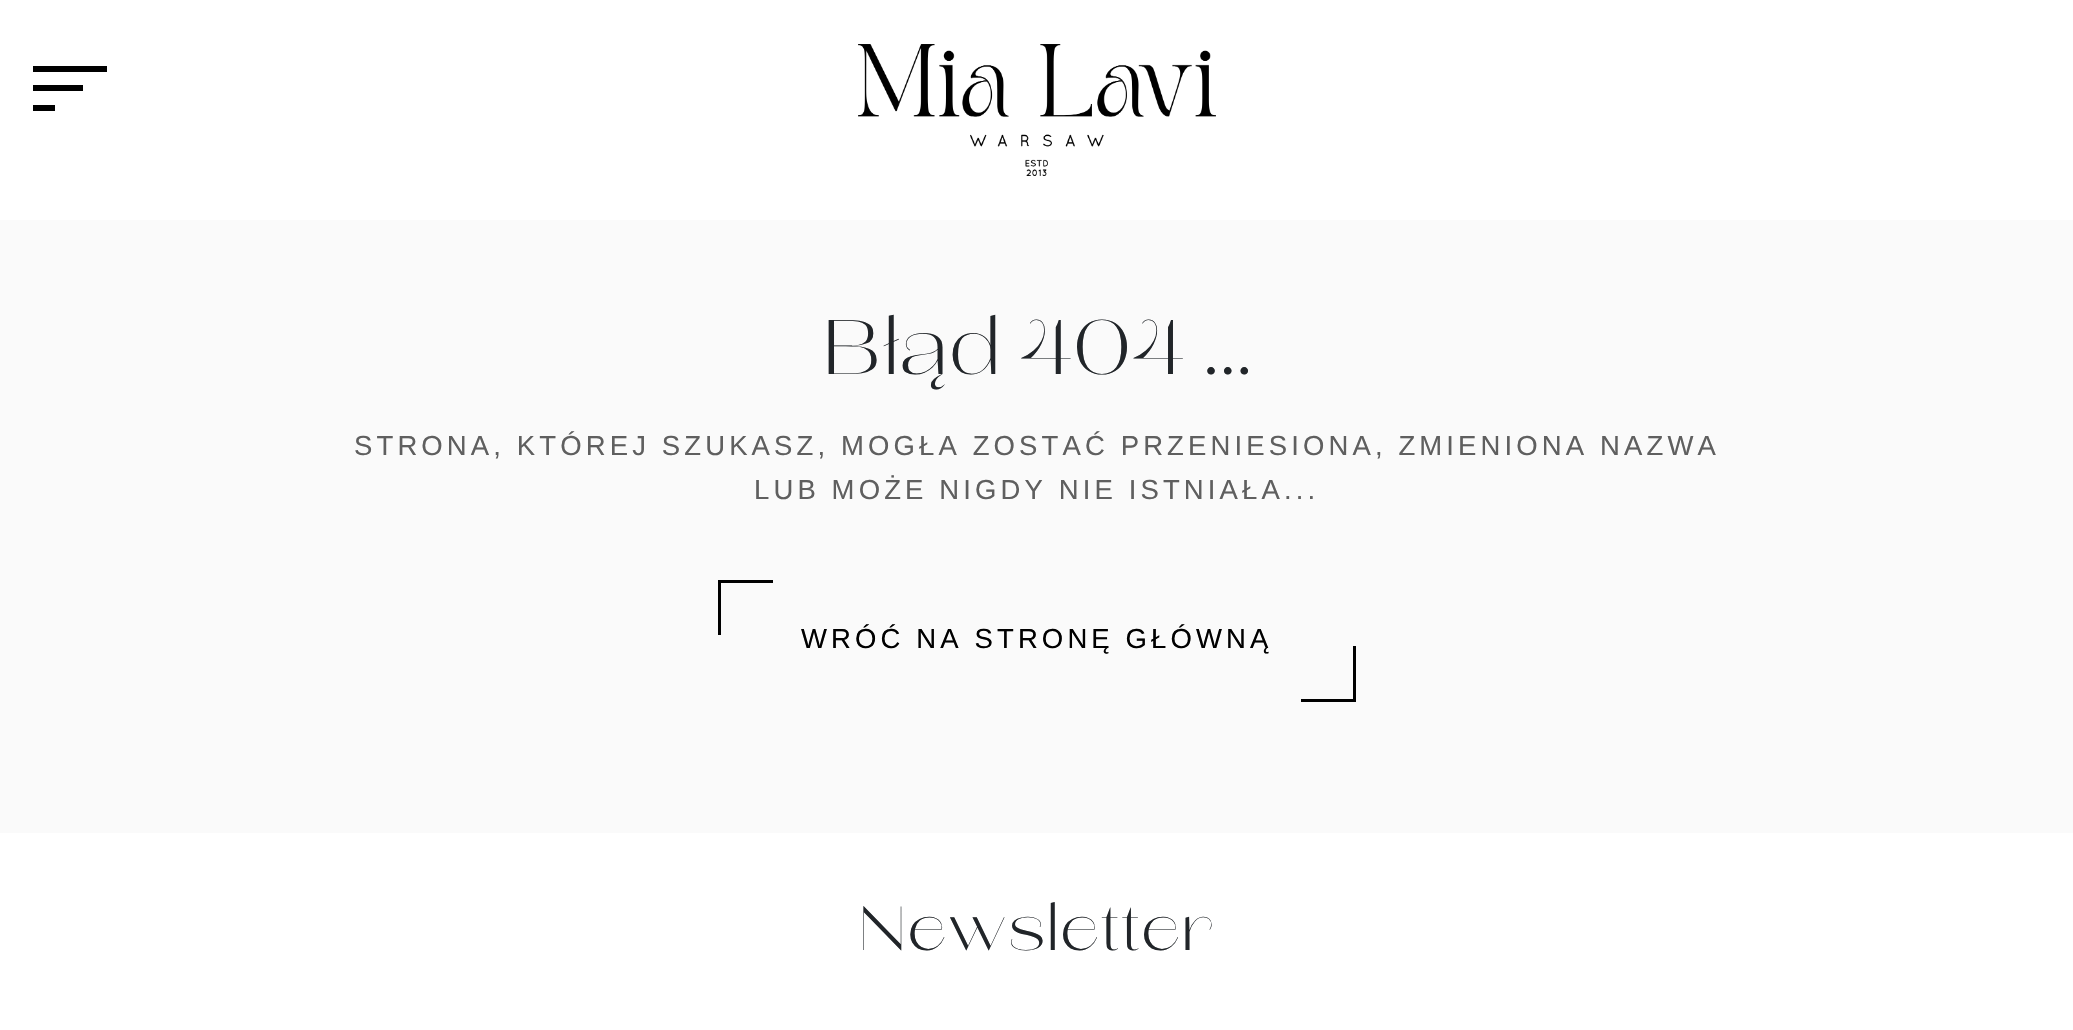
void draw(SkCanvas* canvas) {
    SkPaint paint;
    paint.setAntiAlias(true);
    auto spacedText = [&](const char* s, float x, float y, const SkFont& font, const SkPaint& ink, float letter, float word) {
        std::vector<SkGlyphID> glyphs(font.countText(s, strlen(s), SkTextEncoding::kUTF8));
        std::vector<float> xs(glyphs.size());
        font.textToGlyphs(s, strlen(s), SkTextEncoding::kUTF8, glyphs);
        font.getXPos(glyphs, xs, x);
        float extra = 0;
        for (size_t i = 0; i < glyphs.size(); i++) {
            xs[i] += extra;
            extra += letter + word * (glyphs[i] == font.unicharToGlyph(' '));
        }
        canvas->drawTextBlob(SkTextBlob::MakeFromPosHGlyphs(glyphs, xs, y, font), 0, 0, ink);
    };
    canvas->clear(0xFFFAFAFA);
    paint.setColor(0xFFFFFFFF);
    canvas->drawRect(SkRect::MakeXYWH(0, 0, 2073, 220), paint);
    paint.setColor(0xFF000000);
    canvas->drawRect(SkRect::MakeXYWH(33, 66, 74, 6), paint);
    canvas->drawRect(SkRect::MakeXYWH(33, 85, 50, 6), paint);
    canvas->drawRect(SkRect::MakeXYWH(33, 105, 22, 6), paint);
    canvas->drawImageRect(SkImages::DeferredFromEncodedData(SkData::MakeFromFileName("img1.png")), SkRect::MakeXYWH(858, 44, 358, 132), SkSamplingOptions());
    SkFont font1(fontMgr->matchFamilyStyle("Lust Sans", SkFontStyle(300, SkFontStyle::kNormal_Width, SkFontStyle::kUpright_Slant)), 77);
    font1.setSubpixel(true);
    paint.setColor(0xFF212529);
    canvas->drawString("Błąd 404 ...", 822, 374, font1, paint);
    SkFont font2(fontMgr->matchFamilyStyle("Liberation Sans", SkFontStyle::Normal()), 27.5f);
    font2.setSubpixel(true);
    paint.setColor(0xFF5F5F5F);
    spacedText("STRONA, KTÓREJ SZUKASZ, MOGŁA ZOSTAĆ PRZENIESIONA, ZMIENIONA NAZWA", 354, 455, font2, paint, 4.12f, 0);
    spacedText("LUB MOŻE NIGDY NIE ISTNIAŁA...", 754, 499, font2, paint, 4.12f, 0);
    paint.setColor(0xFF000000);
    canvas->drawRect(SkRect::MakeXYWH(718, 580, 55, 3), paint);
    canvas->drawRect(SkRect::MakeXYWH(718, 580, 3, 55), paint);
    spacedText("WRÓĆ NA STRONĘ GŁÓWNĄ", 801, 648, font2, paint, 4.12f, 0);
    canvas->drawRect(SkRect::MakeXYWH(1353, 646, 3, 55), paint);
    canvas->drawRect(SkRect::MakeXYWH(1301, 699, 55, 3), paint);
    paint.setColor(0xFFFFFFFF);
    canvas->drawRect(SkRect::MakeXYWH(0, 833, 2073, 197), paint);
    SkFont font3(fontMgr->matchFamilyStyle("Lust Sans", SkFontStyle(300, SkFontStyle::kNormal_Width, SkFontStyle::kUpright_Slant)), 62.25f);
    font3.setSubpixel(true);
    paint.setColor(0xFF212529);
    canvas->drawString("Newsletter", 858, 950, font3, paint);
}
